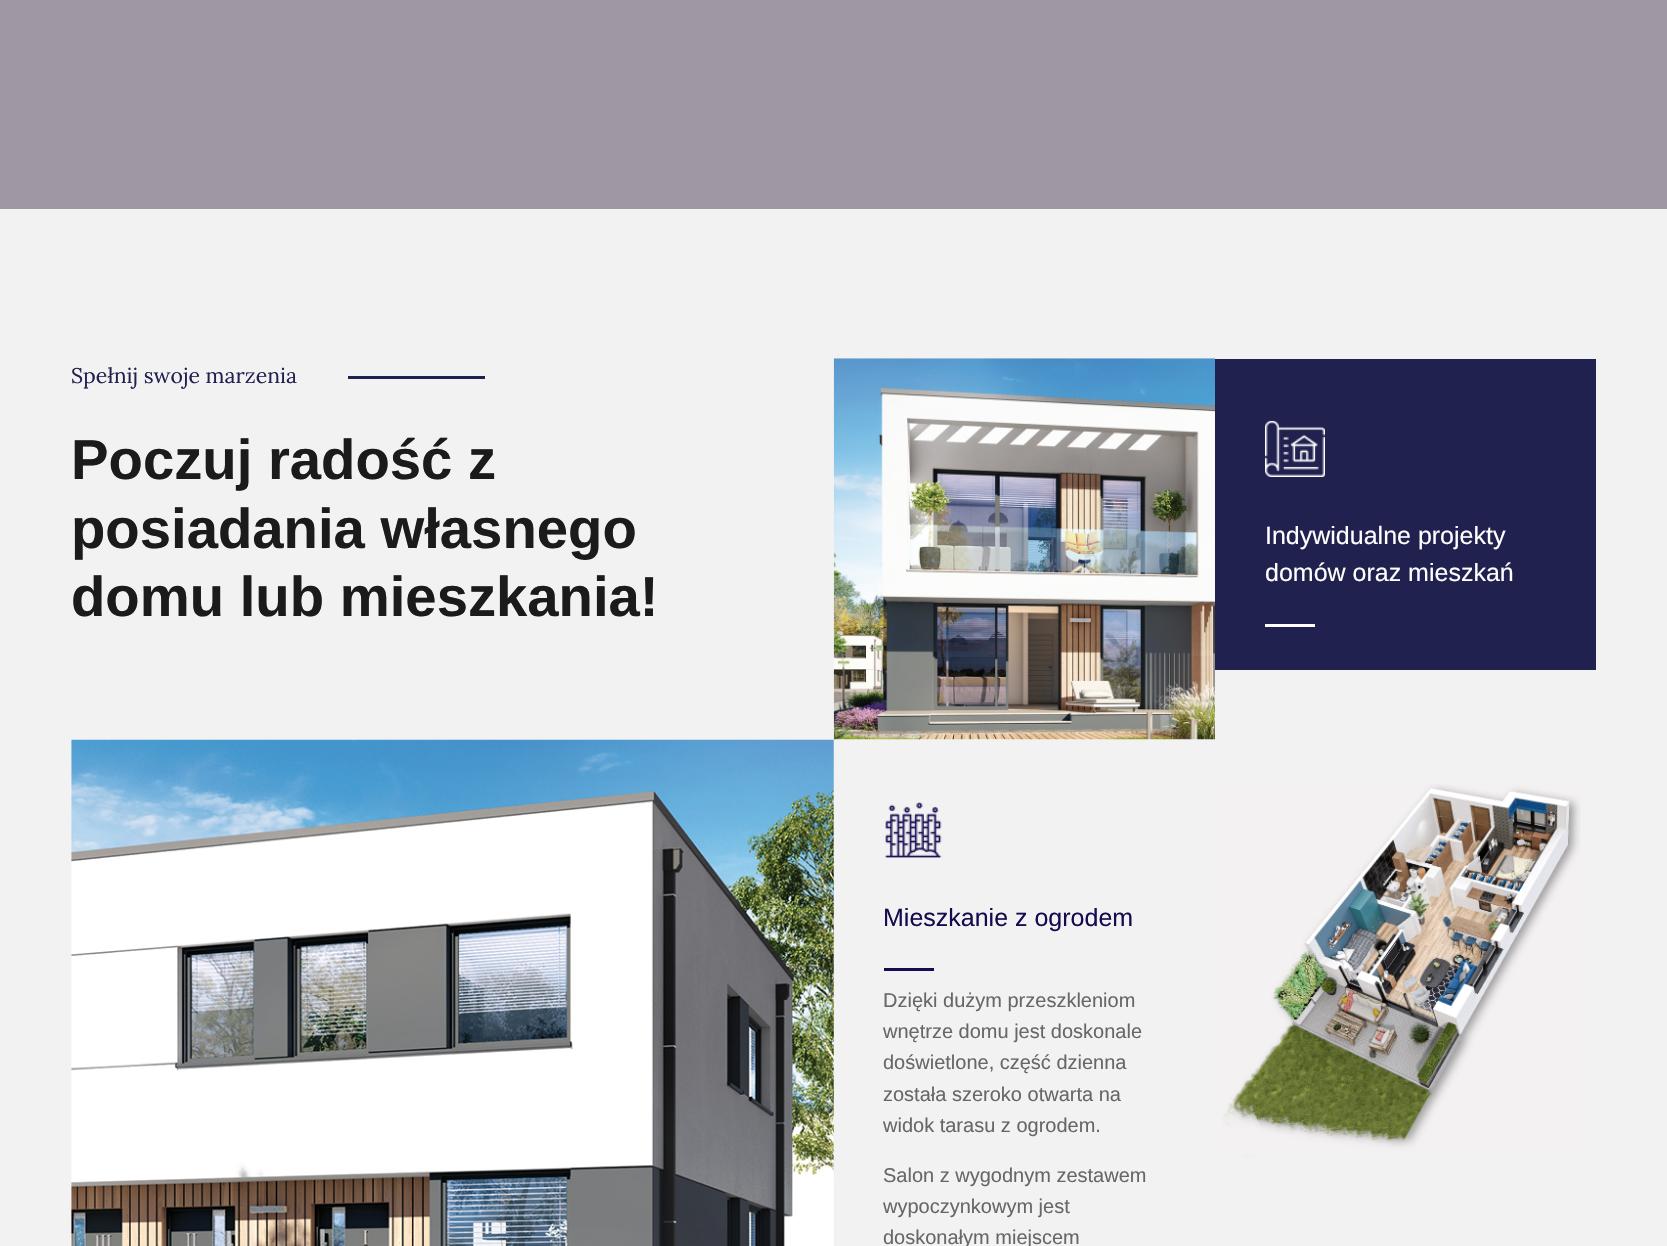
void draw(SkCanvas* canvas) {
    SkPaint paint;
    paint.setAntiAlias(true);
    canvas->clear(0xFFA097A4);
    paint.setColor(0xFFF3F2F2);
    canvas->drawRect(SkRect::MakeXYWH(0, 209, 1667, 1037), paint);
    SkFont font1(fontMgr->matchFamilyStyle("Lora", SkFontStyle::Normal()), 21.25f);
    font1.setSubpixel(true);
    paint.setColor(0xFF22204F);
    canvas->drawString("Spełnij swoje marzenia", 71, 383, font1, paint);
    paint.setColor(0xFF20214F);
    canvas->drawRect(SkRect::MakeXYWH(348, 376, 137, 3), paint);
    SkFont font2(fontMgr->matchFamilyStyle("Liberation Sans", SkFontStyle::Bold()), 56.25f);
    font2.setSubpixel(true);
    paint.setColor(0xFF1B1B1B);
    canvas->drawString("Poczuj radość z", 71, 479, font2, paint);
    canvas->drawString("posiadania własnego", 71, 548, font2, paint);
    canvas->drawString("domu lub mieszkania!", 71, 616, font2, paint);
    canvas->drawImageRect(SkImages::DeferredFromEncodedData(SkData::MakeFromFileName("img1.png")), SkRect::MakeXYWH(833, 358, 382, 382), SkSamplingOptions());
    paint.setColor(0xFF20214F);
    canvas->drawRect(SkRect::MakeXYWH(1215, 359, 381, 311), paint);
    canvas->drawImageRect(SkImages::DeferredFromEncodedData(SkData::MakeFromFileName("img2.png")), SkRect::MakeXYWH(1265, 420, 60, 57), SkSamplingOptions());
    SkFont font3(fontMgr->matchFamilyStyle("Liberation Sans", SkFontStyle::Normal()), 25);
    font3.setSubpixel(true);
    paint.setColor(0xFFFFFFFF);
    canvas->drawString("Indywidualne projekty", 1265, 544, font3, paint);
    canvas->drawString("domów oraz mieszkań", 1265, 581, font3, paint);
    canvas->drawRect(SkRect::MakeXYWH(1265, 624, 50, 3), paint);
    canvas->drawImageRect(SkImages::DeferredFromEncodedData(SkData::MakeFromFileName("img3.png")), SkRect::MakeXYWH(71, 739, 763, 507), SkSamplingOptions());
    canvas->drawImageRect(SkImages::DeferredFromEncodedData(SkData::MakeFromFileName("img4.png")), SkRect::MakeXYWH(885, 802, 57, 56), SkSamplingOptions());
    paint.setColor(0xFF160B50);
    canvas->drawString("Mieszkanie z ogrodem", 883, 926, font3, paint);
    canvas->drawRect(SkRect::MakeXYWH(884, 968, 50, 3), paint);
    SkFont font4(fontMgr->matchFamilyStyle("Liberation Sans", SkFontStyle::Normal()), 20);
    font4.setSubpixel(true);
    paint.setColor(0xFF686767);
    canvas->drawString("Dzięki dużym przeszkleniom", 883, 1007, font4, paint);
    canvas->drawString("wnętrze domu jest doskonale", 883, 1038, font4, paint);
    canvas->drawString("doświetlone, część dzienna", 883, 1069, font4, paint);
    canvas->drawString("została szeroko otwarta na", 883, 1101, font4, paint);
    canvas->drawString("widok tarasu z ogrodem.", 883, 1132, font4, paint);
    canvas->drawString("Salon z wygodnym zestawem", 883, 1182, font4, paint);
    canvas->drawString("wypoczynkowym jest", 883, 1213, font4, paint);
    canvas->drawString("doskonałym miejscem", 883, 1244, font4, paint);
    canvas->drawImageRect(SkImages::DeferredFromEncodedData(SkData::MakeFromFileName("img5.png")), SkRect::MakeXYWH(1222, 784, 359, 374), SkSamplingOptions());
}
